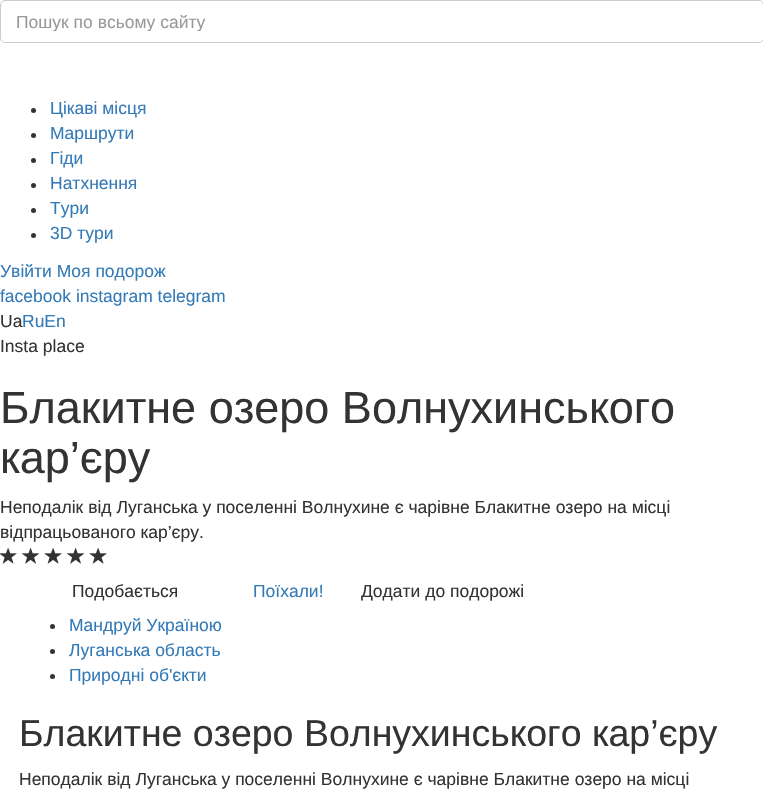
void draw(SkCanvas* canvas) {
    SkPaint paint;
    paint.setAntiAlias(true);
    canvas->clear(0xFFFFFFFF);
    paint.setStyle(SkPaint::kStroke_Style);
    paint.setStrokeWidth(1);
    paint.setColor(0xFFCCCCCC);
    canvas->drawRoundRect(SkRect::MakeXYWH(0.5f, 0.5f, 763, 42), 4.5f, 4.5f, paint);
    canvas->save();
    canvas->clipRect(SkRect::MakeXYWH(16, 11, 732, 20));
    SkFont font1(fontMgr->matchFamilyStyle("Liberation Sans", SkFontStyle::Normal()), 17.5f);
    font1.setSubpixel(true);
    paint.setStyle(SkPaint::kFill_Style);
    paint.setColor(0xFF999999);
    canvas->drawString("Пошук по всьому сайту", 16, 28, font1, paint);
    canvas->restore();
    paint.setColor(0xFF333333);
    canvas->drawCircle(33.5f, 110.5f, 2.5f, paint);
    paint.setColor(0xFF337AB7);
    canvas->drawString("Цікаві місця", 50, 114, font1, paint);
    paint.setColor(0xFF333333);
    canvas->drawCircle(33.5f, 135.5f, 2.5f, paint);
    paint.setColor(0xFF337AB7);
    canvas->drawString("Маршрути", 50, 139, font1, paint);
    paint.setColor(0xFF333333);
    canvas->drawCircle(33.5f, 160.5f, 2.5f, paint);
    paint.setColor(0xFF337AB7);
    canvas->drawString("Гіди", 50, 164, font1, paint);
    paint.setColor(0xFF333333);
    canvas->drawCircle(33.5f, 185.5f, 2.5f, paint);
    paint.setColor(0xFF337AB7);
    canvas->drawString("Натхнення", 50, 189, font1, paint);
    paint.setColor(0xFF333333);
    canvas->drawCircle(33.5f, 210.5f, 2.5f, paint);
    paint.setColor(0xFF337AB7);
    canvas->drawString("Тури", 50, 214, font1, paint);
    paint.setColor(0xFF333333);
    canvas->drawCircle(33.5f, 235.5f, 2.5f, paint);
    paint.setColor(0xFF337AB7);
    canvas->drawString("3D тури", 50, 239, font1, paint);
    canvas->drawString("Увійти Моя подорож", 0, 277, font1, paint);
    canvas->drawString("facebook instagram telegram", 0, 302, font1, paint);
    paint.setColor(0xFF333333);
    canvas->drawString("Ua", 0, 327, font1, paint);
    paint.setColor(0xFF337AB7);
    canvas->drawString("RuEn", 22, 327, font1, paint);
    paint.setColor(0xFF333333);
    canvas->drawString("Insta place", 0, 352, font1, paint);
    SkFont font2(fontMgr->matchFamilyStyle("Liberation Sans", SkFontStyle::Normal()), 45);
    font2.setSubpixel(true);
    canvas->drawString("Блакитне озеро Волнухинського", 0, 423, font2, paint);
    canvas->drawString("кар’єру", 0, 473, font2, paint);
    canvas->drawString("Неподалік від Луганська у поселенні Волнухине є чарівне Блакитне озеро на місці", 0, 513, font1, paint);
    canvas->drawString("відпрацьованого кар’єру.", 0, 538, font1, paint);
    canvas->drawImageRect(SkImages::DeferredFromEncodedData(SkData::MakeFromFileName("img1.png")), SkRect::MakeXYWH(0, 548, 17, 16), SkSamplingOptions());
    canvas->drawImageRect(SkImages::DeferredFromEncodedData(SkData::MakeFromFileName("img2.png")), SkRect::MakeXYWH(21, 548, 19, 16), SkSamplingOptions());
    canvas->drawImageRect(SkImages::DeferredFromEncodedData(SkData::MakeFromFileName("img3.png")), SkRect::MakeXYWH(44, 548, 18, 16), SkSamplingOptions());
    canvas->drawImageRect(SkImages::DeferredFromEncodedData(SkData::MakeFromFileName("img2.png")), SkRect::MakeXYWH(66, 548, 19, 16), SkSamplingOptions());
    canvas->drawImageRect(SkImages::DeferredFromEncodedData(SkData::MakeFromFileName("img3.png")), SkRect::MakeXYWH(89, 548, 18, 16), SkSamplingOptions());
    canvas->drawString("Подобається", 72, 597, font1, paint);
    paint.setColor(0xFF337AB7);
    canvas->drawString("Поїхали!", 253, 597, font1, paint);
    paint.setColor(0xFF333333);
    canvas->drawString("Додати до подорожі", 361, 597, font1, paint);
    canvas->drawCircle(52.5f, 626.5f, 2.5f, paint);
    paint.setColor(0xFF337AB7);
    canvas->drawString("Мандруй Україною", 69, 631, font1, paint);
    paint.setColor(0xFF333333);
    canvas->drawCircle(52.5f, 651.5f, 2.5f, paint);
    paint.setColor(0xFF337AB7);
    canvas->drawString("Луганська область", 69, 656, font1, paint);
    paint.setColor(0xFF333333);
    canvas->drawCircle(52.5f, 676.5f, 2.5f, paint);
    paint.setColor(0xFF337AB7);
    canvas->drawString("Природні об'єкти", 69, 681, font1, paint);
    SkFont font3(fontMgr->matchFamilyStyle("Liberation Sans", SkFontStyle::Normal()), 37.5f);
    font3.setSubpixel(true);
    paint.setColor(0xFF333333);
    canvas->drawString("Блакитне озеро Волнухинського кар’єру", 19, 746, font3, paint);
    canvas->drawString("Неподалік від Луганська у поселенні Волнухине є чарівне Блакитне озеро на місці", 19, 785, font1, paint);
}
